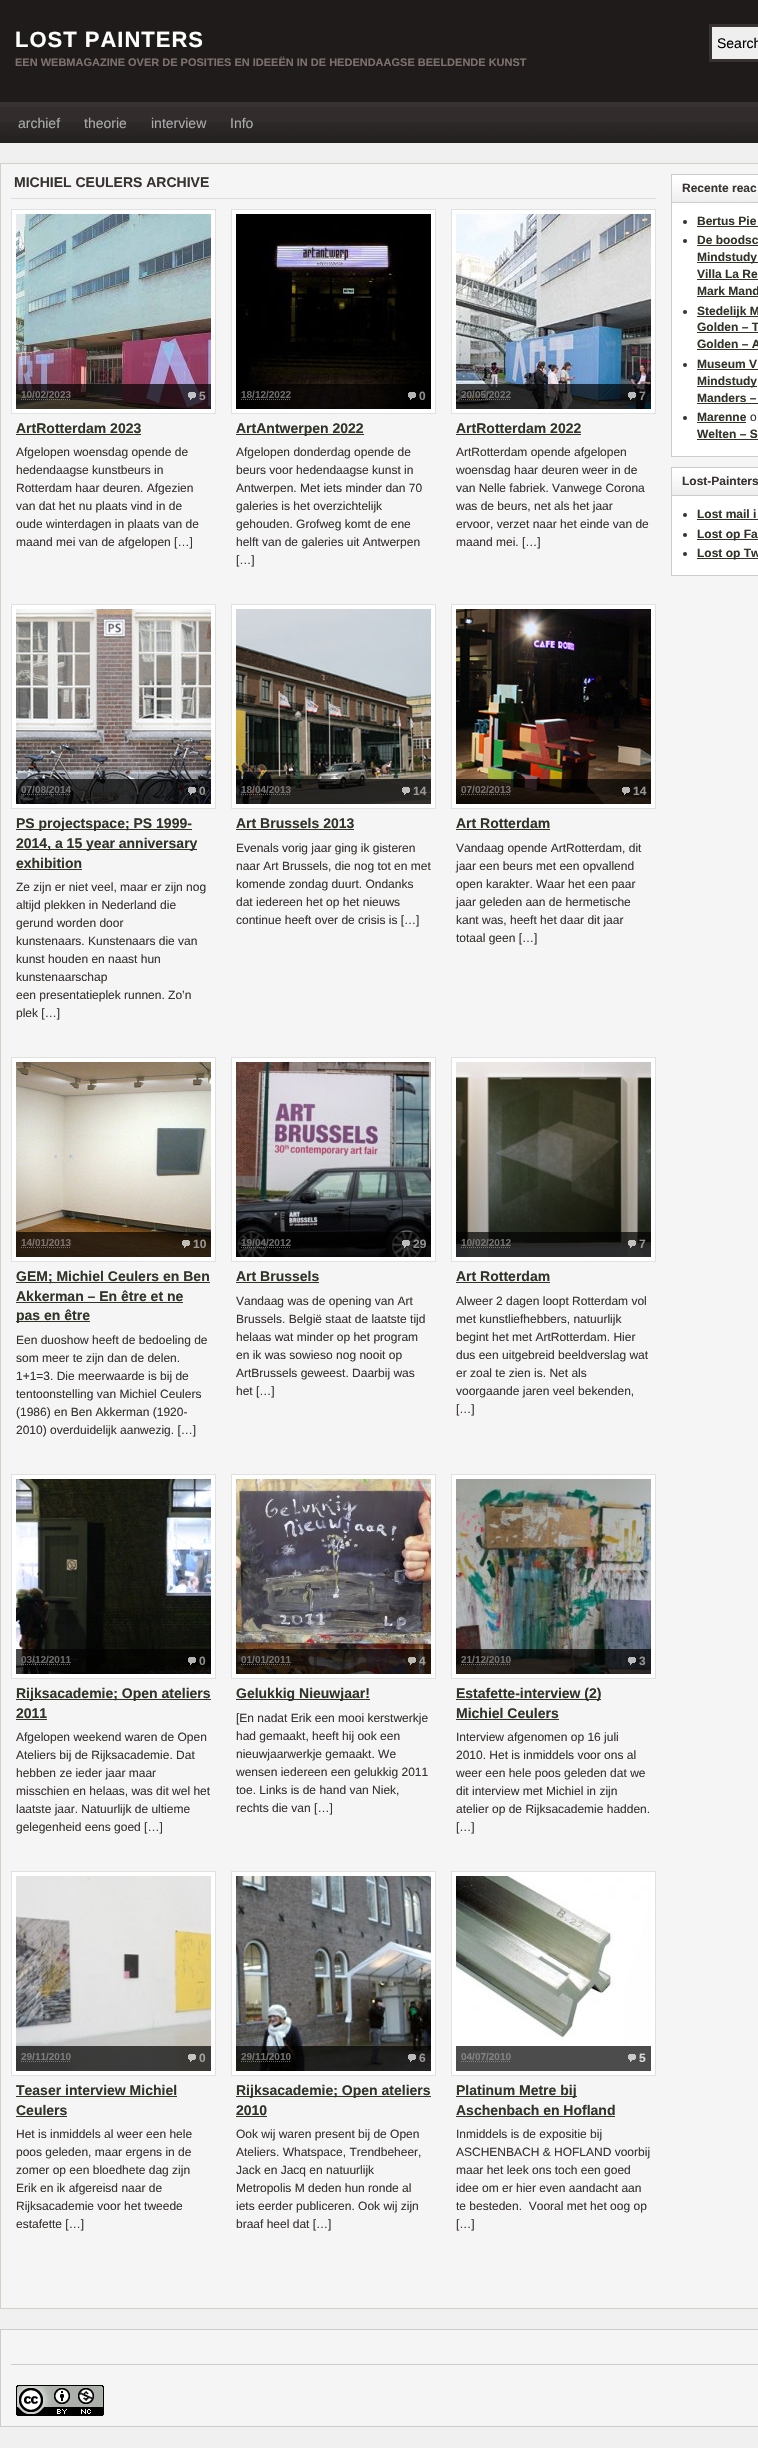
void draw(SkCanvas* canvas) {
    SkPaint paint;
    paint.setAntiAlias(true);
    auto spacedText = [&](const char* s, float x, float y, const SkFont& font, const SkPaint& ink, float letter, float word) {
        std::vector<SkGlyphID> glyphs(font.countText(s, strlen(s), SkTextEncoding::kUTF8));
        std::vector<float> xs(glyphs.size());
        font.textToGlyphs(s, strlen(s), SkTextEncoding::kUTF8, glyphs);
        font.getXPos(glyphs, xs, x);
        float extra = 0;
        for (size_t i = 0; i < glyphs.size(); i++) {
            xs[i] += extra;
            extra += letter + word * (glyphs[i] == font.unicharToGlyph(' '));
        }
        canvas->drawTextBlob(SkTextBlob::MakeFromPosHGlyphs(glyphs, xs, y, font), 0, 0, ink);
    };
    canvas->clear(0xFFF0F0F0);
    paint.setColor(0xFF1E1B1A);
    canvas->drawRect(SkRect::MakeXYWH(0, 0, 758, 102), paint);
    paint.setColor(0xFF383332);
    canvas->drawRect(SkRect::MakeXYWH(0, 102, 758, 5), paint);
    SkFont font1(fontMgr->matchFamilyStyle("Liberation Sans", SkFontStyle::Bold()), 22);
    font1.setSubpixel(true);
    paint.setColor(0xFFFFFFFF);
    spacedText("LOST PAINTERS", 15, 47, font1, paint, 1, 0);
    SkFont font2(fontMgr->matchFamilyStyle("Liberation Sans", SkFontStyle::Bold()), 11);
    font2.setSubpixel(true);
    paint.setColor(0xFF7D716D);
    canvas->drawString("EEN WEBMAGAZINE OVER DE POSITIES EN IDEEËN IN DE HEDENDAAGSE BEELDENDE KUNST", 15, 66, font2, paint);
    paint.setColor(0xFFEFEFEF);
    canvas->drawRect(SkRect::MakeXYWH(710.5f, 25.5f, 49, 35), paint);
    paint.setStyle(SkPaint::kStroke_Style);
    paint.setStrokeWidth(3);
    paint.setColor(0xFF383332);
    canvas->drawRect(SkRect::MakeXYWH(710.5f, 25.5f, 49, 35), paint);
    SkFont font3(fontMgr->matchFamilyStyle("Liberation Sans", SkFontStyle::Normal()), 14);
    font3.setSubpixel(true);
    paint.setStyle(SkPaint::kFill_Style);
    paint.setColor(0xFF000000);
    canvas->drawString("Search", 717, 48, font3, paint);
    paint.setColor(0xFF322C2C);
    canvas->drawRect(SkRect::MakeXYWH(0, 107, 758, 15), paint);
    canvas->drawImageRect(SkImages::DeferredFromEncodedData(SkData::MakeFromFileName("img1.png")), SkRect::MakeXYWH(0, 122, 758, 21), SkSamplingOptions());
    paint.setColor(0xFFAAAAAA);
    canvas->drawString("archief", 18, 128, font3, paint);
    canvas->drawString("theorie", 84, 128, font3, paint);
    canvas->drawString("interview", 151, 128, font3, paint);
    canvas->drawString("Info", 230, 128, font3, paint);
    paint.setColor(0xFFF5F5F5);
    canvas->drawRect(SkRect::MakeXYWH(0.5f, 163.5f, 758, 2145), paint);
    paint.setStyle(SkPaint::kStroke_Style);
    paint.setStrokeWidth(1);
    paint.setColor(0xFFD3D1C7);
    canvas->drawRect(SkRect::MakeXYWH(0.5f, 163.5f, 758, 2145), paint);
    paint.setStyle(SkPaint::kFill_Style);
    paint.setColor(0xFFDDDDDD);
    canvas->drawRect(SkRect::MakeXYWH(11, 198, 645, 1), paint);
    SkFont font4(fontMgr->matchFamilyStyle("Liberation Sans", SkFontStyle::Bold()), 14);
    font4.setSubpixel(true);
    paint.setColor(0xFF383331);
    canvas->drawString("MICHIEL CEULERS ARCHIVE", 14, 187, font4, paint);
    paint.setColor(0xFFFFFFFF);
    canvas->drawRect(SkRect::MakeXYWH(11.5f, 209.5f, 204, 204), paint);
    paint.setStyle(SkPaint::kStroke_Style);
    paint.setColor(0xFFE1E1E1);
    canvas->drawRect(SkRect::MakeXYWH(11.5f, 209.5f, 204, 204), paint);
    canvas->drawImageRect(SkImages::DeferredFromEncodedData(SkData::MakeFromFileName("img2.png")), SkRect::MakeXYWH(16, 214, 195, 195), SkSamplingOptions());
    paint.setStyle(SkPaint::kFill_Style);
    paint.setColor(0xB3000000);
    canvas->drawRect(SkRect::MakeXYWH(16, 384, 195, 25), paint);
    SkFont font5(fontMgr->matchFamilyStyle("Liberation Sans", SkFontStyle::Bold()), 10);
    font5.setSubpixel(true);
    paint.setColor(0xFF757272);
    canvas->drawString("10/02/2023", 21, 398, font5, paint);
    paint.setStyle(SkPaint::kStroke_Style);
    paint.setColor(0xB3999999);
    paint.setPathEffect(SkDashPathEffect::Make({{1, 1}}, 0));
    canvas->drawPath(SkPathBuilder().moveTo(21, 399.5f).lineTo(71, 399.5f).detach(), paint);
    paint.setPathEffect(nullptr);
    canvas->drawImageRect(SkImages::DeferredFromEncodedData(SkData::MakeFromFileName("img3.png")), SkRect::MakeXYWH(188, 392, 8, 8), SkSamplingOptions());
    SkFont font6(fontMgr->matchFamilyStyle("Liberation Sans", SkFontStyle::Bold()), 12);
    font6.setSubpixel(true);
    paint.setStyle(SkPaint::kFill_Style);
    paint.setColor(0xFF9C9699);
    canvas->drawString("5", 199, 400, font6, paint);
    paint.setColor(0xFF313428);
    canvas->drawString("ArtRotterdam 2023", 16, 433, font4, paint);
    canvas->drawRect(SkRect::MakeXYWH(16, 434, 125, 1), paint);
    SkFont font7(fontMgr->matchFamilyStyle("Liberation Sans", SkFontStyle::Normal()), 12);
    font7.setSubpixel(true);
    paint.setColor(0xFF383331);
    canvas->drawString("Afgelopen woensdag opende de", 16, 456, font7, paint);
    canvas->drawString("hedendaagse kunstbeurs in", 16, 474, font7, paint);
    canvas->drawString("Rotterdam haar deuren. Afgezien", 16, 492, font7, paint);
    canvas->drawString("van dat het nu plaats vind in de", 16, 510, font7, paint);
    canvas->drawString("oude winterdagen in plaats van de", 16, 528, font7, paint);
    canvas->drawString("maand mei van de afgelopen […]", 16, 546, font7, paint);
    paint.setColor(0xFFFFFFFF);
    canvas->drawRect(SkRect::MakeXYWH(231.5f, 209.5f, 204, 204), paint);
    paint.setStyle(SkPaint::kStroke_Style);
    paint.setColor(0xFFE1E1E1);
    canvas->drawRect(SkRect::MakeXYWH(231.5f, 209.5f, 204, 204), paint);
    canvas->drawImageRect(SkImages::DeferredFromEncodedData(SkData::MakeFromFileName("img4.png")), SkRect::MakeXYWH(236, 214, 195, 195), SkSamplingOptions());
    paint.setStyle(SkPaint::kFill_Style);
    paint.setColor(0xB3000000);
    canvas->drawRect(SkRect::MakeXYWH(246, 384, 178, 25), paint);
    paint.setColor(0xFF6D6C6C);
    canvas->drawString("18/12/2022", 241, 398, font5, paint);
    paint.setStyle(SkPaint::kStroke_Style);
    paint.setColor(0xB3999999);
    paint.setPathEffect(SkDashPathEffect::Make({{1, 1}}, 0));
    canvas->drawPath(SkPathBuilder().moveTo(241, 399.5f).lineTo(291, 399.5f).detach(), paint);
    paint.setPathEffect(nullptr);
    canvas->drawImageRect(SkImages::DeferredFromEncodedData(SkData::MakeFromFileName("img5.png")), SkRect::MakeXYWH(408, 392, 8, 8), SkSamplingOptions());
    paint.setStyle(SkPaint::kFill_Style);
    paint.setColor(0xFF8F8F8F);
    canvas->drawString("0", 419, 400, font6, paint);
    paint.setColor(0xFF313428);
    canvas->drawRect(SkRect::MakeXYWH(236, 434, 128, 1), paint);
    canvas->drawString("ArtAntwerpen 2022", 236, 433, font4, paint);
    paint.setColor(0xFF383331);
    canvas->drawString("Afgelopen donderdag opende de", 236, 456, font7, paint);
    canvas->drawString("beurs voor hedendaagse kunst in", 236, 474, font7, paint);
    canvas->drawString("Antwerpen. Met iets minder dan 70", 236, 492, font7, paint);
    canvas->drawString("galeries is het overzichtelijk", 236, 510, font7, paint);
    canvas->drawString("gehouden. Grofweg komt de ene", 236, 528, font7, paint);
    canvas->drawString("helft van de galeries uit Antwerpen", 236, 546, font7, paint);
    canvas->drawString("[…]", 236, 564, font7, paint);
    paint.setColor(0xFFFFFFFF);
    canvas->drawRect(SkRect::MakeXYWH(451.5f, 209.5f, 204, 204), paint);
    paint.setStyle(SkPaint::kStroke_Style);
    paint.setColor(0xFFE1E1E1);
    canvas->drawRect(SkRect::MakeXYWH(451.5f, 209.5f, 204, 204), paint);
    canvas->drawImageRect(SkImages::DeferredFromEncodedData(SkData::MakeFromFileName("img6.png")), SkRect::MakeXYWH(456, 214, 195, 195), SkSamplingOptions());
    paint.setStyle(SkPaint::kFill_Style);
    paint.setColor(0xB3000000);
    canvas->drawRect(SkRect::MakeXYWH(456, 384, 195, 25), paint);
    paint.setColor(0xFF757272);
    canvas->drawString("20/05/2022", 461, 398, font5, paint);
    paint.setStyle(SkPaint::kStroke_Style);
    paint.setColor(0xB3999999);
    paint.setPathEffect(SkDashPathEffect::Make({{1, 1}}, 0));
    canvas->drawPath(SkPathBuilder().moveTo(461, 399.5f).lineTo(511, 399.5f).detach(), paint);
    paint.setPathEffect(nullptr);
    canvas->drawImageRect(SkImages::DeferredFromEncodedData(SkData::MakeFromFileName("img7.png")), SkRect::MakeXYWH(628, 392, 8, 8), SkSamplingOptions());
    paint.setStyle(SkPaint::kFill_Style);
    paint.setColor(0xFF8F8F8F);
    canvas->drawString("7", 639, 400, font6, paint);
    paint.setColor(0xFF313428);
    canvas->drawString("ArtRotterdam 2022", 456, 433, font4, paint);
    canvas->drawRect(SkRect::MakeXYWH(456, 434, 125, 1), paint);
    paint.setColor(0xFF383331);
    canvas->drawString("ArtRotterdam opende afgelopen", 456, 456, font7, paint);
    canvas->drawString("woensdag haar deuren weer in de", 456, 474, font7, paint);
    canvas->drawString("van Nelle fabriek. Vanwege Corona", 456, 492, font7, paint);
    canvas->drawString("was de beurs, net als het jaar", 456, 510, font7, paint);
    canvas->drawString("ervoor, verzet naar het einde van de", 456, 528, font7, paint);
    canvas->drawString("maand mei. […]", 456, 546, font7, paint);
    paint.setColor(0xFFFFFFFF);
    canvas->drawRect(SkRect::MakeXYWH(11.5f, 604.5f, 204, 204), paint);
    paint.setStyle(SkPaint::kStroke_Style);
    paint.setColor(0xFFE1E1E1);
    canvas->drawRect(SkRect::MakeXYWH(11.5f, 604.5f, 204, 204), paint);
    canvas->drawImageRect(SkImages::DeferredFromEncodedData(SkData::MakeFromFileName("img8.png")), SkRect::MakeXYWH(16, 609, 195, 195), SkSamplingOptions());
    paint.setStyle(SkPaint::kFill_Style);
    paint.setColor(0xB3000000);
    canvas->drawRect(SkRect::MakeXYWH(16, 779, 195, 25), paint);
    paint.setColor(0xFF757272);
    canvas->drawString("07/08/2014", 21, 793, font5, paint);
    paint.setStyle(SkPaint::kStroke_Style);
    paint.setColor(0xB3999999);
    paint.setPathEffect(SkDashPathEffect::Make({{1, 1}}, 0));
    canvas->drawPath(SkPathBuilder().moveTo(21, 794.5f).lineTo(71, 794.5f).detach(), paint);
    paint.setPathEffect(nullptr);
    canvas->drawImageRect(SkImages::DeferredFromEncodedData(SkData::MakeFromFileName("img9.png")), SkRect::MakeXYWH(188, 787, 8, 8), SkSamplingOptions());
    paint.setStyle(SkPaint::kFill_Style);
    paint.setColor(0xFF949595);
    canvas->drawString("0", 199, 795, font6, paint);
    paint.setColor(0xFF313428);
    canvas->drawRect(SkRect::MakeXYWH(16, 829, 176, 1), paint);
    canvas->drawString("PS projectspace; PS 1999-", 16, 828, font4, paint);
    canvas->drawRect(SkRect::MakeXYWH(16, 849, 181, 1), paint);
    canvas->drawString("2014, a 15 year anniversary", 16, 848, font4, paint);
    canvas->drawString("exhibition", 16, 868, font4, paint);
    canvas->drawRect(SkRect::MakeXYWH(16, 869, 66, 1), paint);
    paint.setColor(0xFF383331);
    canvas->drawString("Ze zijn er niet veel, maar er zijn nog", 16, 891, font7, paint);
    canvas->drawString("altijd plekken in Nederland die", 16, 909, font7, paint);
    canvas->drawString("gerund worden door", 16, 927, font7, paint);
    canvas->drawString("kunstenaars. Kunstenaars die van", 16, 945, font7, paint);
    canvas->drawString("kunst houden en naast hun", 16, 963, font7, paint);
    canvas->drawString("kunstenaarschap", 16, 981, font7, paint);
    canvas->drawString("een presentatieplek runnen. Zo’n", 16, 999, font7, paint);
    canvas->drawString("plek […]", 16, 1017, font7, paint);
    paint.setColor(0xFFFFFFFF);
    canvas->drawRect(SkRect::MakeXYWH(231.5f, 604.5f, 204, 204), paint);
    paint.setStyle(SkPaint::kStroke_Style);
    paint.setColor(0xFFE1E1E1);
    canvas->drawRect(SkRect::MakeXYWH(231.5f, 604.5f, 204, 204), paint);
    canvas->drawImageRect(SkImages::DeferredFromEncodedData(SkData::MakeFromFileName("img10.png")), SkRect::MakeXYWH(236, 609, 195, 195), SkSamplingOptions());
    paint.setStyle(SkPaint::kFill_Style);
    paint.setColor(0xB3000000);
    canvas->drawRect(SkRect::MakeXYWH(236, 779, 195, 25), paint);
    paint.setColor(0xFF757272);
    canvas->drawString("18/04/2013", 241, 793, font5, paint);
    paint.setStyle(SkPaint::kStroke_Style);
    paint.setColor(0xB3999999);
    paint.setPathEffect(SkDashPathEffect::Make({{1, 1}}, 0));
    canvas->drawPath(SkPathBuilder().moveTo(241, 794.5f).lineTo(291, 794.5f).detach(), paint);
    paint.setPathEffect(nullptr);
    canvas->drawImageRect(SkImages::DeferredFromEncodedData(SkData::MakeFromFileName("img11.png")), SkRect::MakeXYWH(402, 787, 8, 8), SkSamplingOptions());
    paint.setStyle(SkPaint::kFill_Style);
    paint.setColor(0xFF9C9699);
    canvas->drawString("14", 413, 795, font6, paint);
    paint.setColor(0xFF313428);
    canvas->drawString("Art Brussels 2013", 236, 828, font4, paint);
    canvas->drawRect(SkRect::MakeXYWH(236, 829, 118, 1), paint);
    paint.setColor(0xFF383331);
    canvas->drawString("Evenals vorig jaar ging ik gisteren", 236, 852, font7, paint);
    canvas->drawString("naar Art Brussels, die nog tot en met", 236, 870, font7, paint);
    canvas->drawString("komende zondag duurt. Ondanks", 236, 888, font7, paint);
    canvas->drawString("dat iedereen het op het nieuws", 236, 906, font7, paint);
    canvas->drawString("continue heeft over de crisis is […]", 236, 924, font7, paint);
    paint.setColor(0xFFFFFFFF);
    canvas->drawRect(SkRect::MakeXYWH(451.5f, 604.5f, 204, 204), paint);
    paint.setStyle(SkPaint::kStroke_Style);
    paint.setColor(0xFFE1E1E1);
    canvas->drawRect(SkRect::MakeXYWH(451.5f, 604.5f, 204, 204), paint);
    canvas->drawImageRect(SkImages::DeferredFromEncodedData(SkData::MakeFromFileName("img12.png")), SkRect::MakeXYWH(456, 609, 195, 195), SkSamplingOptions());
    paint.setStyle(SkPaint::kFill_Style);
    paint.setColor(0xB3000000);
    canvas->drawRect(SkRect::MakeXYWH(456, 779, 195, 25), paint);
    paint.setColor(0xFF757272);
    canvas->drawString("07/02/2013", 461, 793, font5, paint);
    paint.setStyle(SkPaint::kStroke_Style);
    paint.setColor(0xB3999999);
    paint.setPathEffect(SkDashPathEffect::Make({{1, 1}}, 0));
    canvas->drawPath(SkPathBuilder().moveTo(461, 794.5f).lineTo(511, 794.5f).detach(), paint);
    paint.setPathEffect(nullptr);
    canvas->drawImageRect(SkImages::DeferredFromEncodedData(SkData::MakeFromFileName("img13.png")), SkRect::MakeXYWH(622, 787, 8, 8), SkSamplingOptions());
    paint.setStyle(SkPaint::kFill_Style);
    paint.setColor(0xFF949595);
    canvas->drawString("14", 633, 795, font6, paint);
    paint.setColor(0xFF313428);
    canvas->drawString("Art Rotterdam", 456, 828, font4, paint);
    canvas->drawRect(SkRect::MakeXYWH(456, 829, 94, 1), paint);
    paint.setColor(0xFF383331);
    canvas->drawString("Vandaag opende ArtRotterdam, dit", 456, 852, font7, paint);
    canvas->drawString("jaar een beurs met een opvallend", 456, 870, font7, paint);
    canvas->drawString("open karakter. Waar het een paar", 456, 888, font7, paint);
    canvas->drawString("jaar geleden aan de hermetische", 456, 906, font7, paint);
    canvas->drawString("kant was, heeft het daar dit jaar", 456, 924, font7, paint);
    canvas->drawString("totaal geen […]", 456, 942, font7, paint);
    paint.setColor(0xFFFFFFFF);
    canvas->drawRect(SkRect::MakeXYWH(11.5f, 1057.5f, 204, 204), paint);
    paint.setStyle(SkPaint::kStroke_Style);
    paint.setColor(0xFFE1E1E1);
    canvas->drawRect(SkRect::MakeXYWH(11.5f, 1057.5f, 204, 204), paint);
    canvas->drawImageRect(SkImages::DeferredFromEncodedData(SkData::MakeFromFileName("img14.png")), SkRect::MakeXYWH(16, 1062, 195, 195), SkSamplingOptions());
    paint.setStyle(SkPaint::kFill_Style);
    paint.setColor(0xB3000000);
    canvas->drawRect(SkRect::MakeXYWH(16, 1232, 195, 25), paint);
    paint.setColor(0xFF7D716D);
    canvas->drawString("14/01/2013", 21, 1246, font5, paint);
    paint.setStyle(SkPaint::kStroke_Style);
    paint.setColor(0xB3999999);
    paint.setPathEffect(SkDashPathEffect::Make({{1, 1}}, 0));
    canvas->drawPath(SkPathBuilder().moveTo(21, 1247.5f).lineTo(71, 1247.5f).detach(), paint);
    paint.setPathEffect(nullptr);
    canvas->drawImageRect(SkImages::DeferredFromEncodedData(SkData::MakeFromFileName("img15.png")), SkRect::MakeXYWH(182, 1240, 8, 8), SkSamplingOptions());
    paint.setStyle(SkPaint::kFill_Style);
    paint.setColor(0xFF9B9692);
    canvas->drawString("10", 193, 1248, font6, paint);
    paint.setColor(0xFF313428);
    canvas->drawRect(SkRect::MakeXYWH(16, 1282, 194, 1), paint);
    canvas->drawString("GEM; Michiel Ceulers en Ben", 16, 1281, font4, paint);
    canvas->drawString("Akkerman – En être et ne", 16, 1301, font4, paint);
    canvas->drawRect(SkRect::MakeXYWH(16, 1302, 167, 1), paint);
    canvas->drawRect(SkRect::MakeXYWH(16, 1321, 74, 1), paint);
    canvas->drawString("pas en être", 16, 1320, font4, paint);
    paint.setColor(0xFF383331);
    canvas->drawString("Een duoshow heeft de bedoeling de", 16, 1344, font7, paint);
    canvas->drawString("som meer te zijn dan de delen.", 16, 1362, font7, paint);
    canvas->drawString("1+1=3. Die meerwaarde is bij de", 16, 1380, font7, paint);
    canvas->drawString("tentoonstelling van Michiel Ceulers", 16, 1398, font7, paint);
    canvas->drawString("(1986) en Ben Akkerman (1920-", 16, 1416, font7, paint);
    canvas->drawString("2010) overduidelijk aanwezig. […]", 16, 1434, font7, paint);
    paint.setColor(0xFFFFFFFF);
    canvas->drawRect(SkRect::MakeXYWH(231.5f, 1057.5f, 204, 204), paint);
    paint.setStyle(SkPaint::kStroke_Style);
    paint.setColor(0xFFE1E1E1);
    canvas->drawRect(SkRect::MakeXYWH(231.5f, 1057.5f, 204, 204), paint);
    canvas->drawImageRect(SkImages::DeferredFromEncodedData(SkData::MakeFromFileName("img16.png")), SkRect::MakeXYWH(236, 1062, 195, 195), SkSamplingOptions());
    paint.setStyle(SkPaint::kFill_Style);
    paint.setColor(0xB3000000);
    canvas->drawRect(SkRect::MakeXYWH(236, 1232, 195, 25), paint);
    paint.setColor(0xFF6D6C6C);
    canvas->drawString("19/04/2012", 241, 1246, font5, paint);
    paint.setStyle(SkPaint::kStroke_Style);
    paint.setColor(0xB3999999);
    paint.setPathEffect(SkDashPathEffect::Make({{1, 1}}, 0));
    canvas->drawPath(SkPathBuilder().moveTo(241, 1247.5f).lineTo(291, 1247.5f).detach(), paint);
    paint.setPathEffect(nullptr);
    canvas->drawImageRect(SkImages::DeferredFromEncodedData(SkData::MakeFromFileName("img17.png")), SkRect::MakeXYWH(402, 1240, 8, 8), SkSamplingOptions());
    paint.setStyle(SkPaint::kFill_Style);
    paint.setColor(0xFF8F8F8F);
    canvas->drawString("29", 413, 1248, font6, paint);
    paint.setColor(0xFF313428);
    canvas->drawString("Art Brussels", 236, 1281, font4, paint);
    canvas->drawRect(SkRect::MakeXYWH(236, 1282, 83, 1), paint);
    paint.setColor(0xFF383331);
    canvas->drawString("Vandaag was de opening van Art", 236, 1305, font7, paint);
    canvas->drawString("Brussels. België staat de laatste tijd", 236, 1323, font7, paint);
    canvas->drawString("helaas wat minder op het program", 236, 1341, font7, paint);
    canvas->drawString("en ik was sowieso nog nooit op", 236, 1359, font7, paint);
    canvas->drawString("ArtBrussels geweest. Daarbij was", 236, 1377, font7, paint);
    canvas->drawString("het […]", 236, 1395, font7, paint);
    paint.setColor(0xFFFFFFFF);
    canvas->drawRect(SkRect::MakeXYWH(451.5f, 1057.5f, 204, 204), paint);
    paint.setStyle(SkPaint::kStroke_Style);
    paint.setColor(0xFFE1E1E1);
    canvas->drawRect(SkRect::MakeXYWH(451.5f, 1057.5f, 204, 204), paint);
    canvas->drawImageRect(SkImages::DeferredFromEncodedData(SkData::MakeFromFileName("img18.png")), SkRect::MakeXYWH(456, 1062, 195, 195), SkSamplingOptions());
    paint.setStyle(SkPaint::kFill_Style);
    paint.setColor(0xB3000000);
    canvas->drawRect(SkRect::MakeXYWH(456, 1232, 195, 25), paint);
    paint.setColor(0xFF757272);
    canvas->drawString("10/02/2012", 461, 1246, font5, paint);
    paint.setStyle(SkPaint::kStroke_Style);
    paint.setColor(0xB3999999);
    paint.setPathEffect(SkDashPathEffect::Make({{1, 1}}, 0));
    canvas->drawPath(SkPathBuilder().moveTo(461, 1247.5f).lineTo(511, 1247.5f).detach(), paint);
    paint.setPathEffect(nullptr);
    canvas->drawImageRect(SkImages::DeferredFromEncodedData(SkData::MakeFromFileName("img19.png")), SkRect::MakeXYWH(628, 1240, 8, 8), SkSamplingOptions());
    paint.setStyle(SkPaint::kFill_Style);
    paint.setColor(0xFF949595);
    canvas->drawString("7", 639, 1248, font6, paint);
    paint.setColor(0xFF313428);
    canvas->drawString("Art Rotterdam", 456, 1281, font4, paint);
    canvas->drawRect(SkRect::MakeXYWH(456, 1282, 94, 1), paint);
    paint.setColor(0xFF383331);
    canvas->drawString("Alweer 2 dagen loopt Rotterdam vol", 456, 1305, font7, paint);
    canvas->drawString("met kunstliefhebbers, natuurlijk", 456, 1323, font7, paint);
    canvas->drawString("begint het met ArtRotterdam. Hier", 456, 1341, font7, paint);
    canvas->drawString("dus een uitgebreid beeldverslag wat", 456, 1359, font7, paint);
    canvas->drawString("er zoal te zien is. Net als", 456, 1377, font7, paint);
    canvas->drawString("voorgaande jaren veel bekenden,", 456, 1395, font7, paint);
    canvas->drawString("[…]", 456, 1413, font7, paint);
    paint.setColor(0xFFFFFFFF);
    canvas->drawRect(SkRect::MakeXYWH(11.5f, 1474.5f, 204, 204), paint);
    paint.setStyle(SkPaint::kStroke_Style);
    paint.setColor(0xFFE1E1E1);
    canvas->drawRect(SkRect::MakeXYWH(11.5f, 1474.5f, 204, 204), paint);
    canvas->drawImageRect(SkImages::DeferredFromEncodedData(SkData::MakeFromFileName("img20.png")), SkRect::MakeXYWH(16, 1479, 195, 195), SkSamplingOptions());
    paint.setStyle(SkPaint::kFill_Style);
    paint.setColor(0xB3000000);
    canvas->drawRect(SkRect::MakeXYWH(16, 1649, 195, 25), paint);
    paint.setColor(0xFF6D6C6C);
    canvas->drawString("03/12/2011", 21, 1663, font5, paint);
    paint.setStyle(SkPaint::kStroke_Style);
    paint.setColor(0xB3999999);
    paint.setPathEffect(SkDashPathEffect::Make({{1, 1}}, 0));
    canvas->drawPath(SkPathBuilder().moveTo(21, 1664.5f).lineTo(71, 1664.5f).detach(), paint);
    paint.setPathEffect(nullptr);
    canvas->drawImageRect(SkImages::DeferredFromEncodedData(SkData::MakeFromFileName("img21.png")), SkRect::MakeXYWH(188, 1657, 8, 8), SkSamplingOptions());
    paint.setStyle(SkPaint::kFill_Style);
    paint.setColor(0xFF8F8F8F);
    canvas->drawString("0", 199, 1665, font6, paint);
    paint.setColor(0xFF313428);
    canvas->drawRect(SkRect::MakeXYWH(16, 1699, 195, 1), paint);
    canvas->drawString("Rijksacademie; Open ateliers", 16, 1698, font4, paint);
    canvas->drawString("2011", 16, 1718, font4, paint);
    canvas->drawRect(SkRect::MakeXYWH(16, 1719, 31, 1), paint);
    paint.setColor(0xFF383331);
    canvas->drawString("Afgelopen weekend waren de Open", 16, 1741, font7, paint);
    canvas->drawString("Ateliers bij de Rijksacademie. Dat", 16, 1759, font7, paint);
    canvas->drawString("hebben ze ieder jaar maar", 16, 1777, font7, paint);
    canvas->drawString("misschien en helaas, was dit wel het", 16, 1795, font7, paint);
    canvas->drawString("laatste jaar. Natuurlijk de ultieme", 16, 1813, font7, paint);
    canvas->drawString("gelegenheid eens goed […]", 16, 1831, font7, paint);
    paint.setColor(0xFFFFFFFF);
    canvas->drawRect(SkRect::MakeXYWH(231.5f, 1474.5f, 204, 204), paint);
    paint.setStyle(SkPaint::kStroke_Style);
    paint.setColor(0xFFE1E1E1);
    canvas->drawRect(SkRect::MakeXYWH(231.5f, 1474.5f, 204, 204), paint);
    canvas->drawImageRect(SkImages::DeferredFromEncodedData(SkData::MakeFromFileName("img22.png")), SkRect::MakeXYWH(236, 1479, 195, 195), SkSamplingOptions());
    paint.setStyle(SkPaint::kFill_Style);
    paint.setColor(0xB3000000);
    canvas->drawRect(SkRect::MakeXYWH(236, 1649, 195, 25), paint);
    paint.setColor(0xFF757272);
    canvas->drawString("01/01/2011", 241, 1663, font5, paint);
    paint.setStyle(SkPaint::kStroke_Style);
    paint.setColor(0xB3999999);
    paint.setPathEffect(SkDashPathEffect::Make({{1, 1}}, 0));
    canvas->drawPath(SkPathBuilder().moveTo(241, 1664.5f).lineTo(291, 1664.5f).detach(), paint);
    paint.setPathEffect(nullptr);
    canvas->drawImageRect(SkImages::DeferredFromEncodedData(SkData::MakeFromFileName("img23.png")), SkRect::MakeXYWH(408, 1657, 8, 8), SkSamplingOptions());
    paint.setStyle(SkPaint::kFill_Style);
    paint.setColor(0xFF9E9C99);
    canvas->drawString("4", 419, 1665, font6, paint);
    paint.setColor(0xFF313428);
    canvas->drawRect(SkRect::MakeXYWH(236, 1699, 134, 1), paint);
    canvas->drawString("Gelukkig Nieuwjaar!", 236, 1698, font4, paint);
    paint.setColor(0xFF383331);
    canvas->drawString("[En nadat Erik een mooi kerstwerkje", 236, 1722, font7, paint);
    canvas->drawString("had gemaakt, heeft hij ook een", 236, 1740, font7, paint);
    canvas->drawString("nieuwjaarwerkje gemaakt. We", 236, 1758, font7, paint);
    canvas->drawString("wensen iedereen een gelukkig 2011", 236, 1776, font7, paint);
    canvas->drawString("toe. Links is de hand van Niek,", 236, 1794, font7, paint);
    canvas->drawString("rechts die van […]", 236, 1812, font7, paint);
    paint.setColor(0xFFFFFFFF);
    canvas->drawRect(SkRect::MakeXYWH(451.5f, 1474.5f, 204, 204), paint);
    paint.setStyle(SkPaint::kStroke_Style);
    paint.setColor(0xFFE1E1E1);
    canvas->drawRect(SkRect::MakeXYWH(451.5f, 1474.5f, 204, 204), paint);
    canvas->drawImageRect(SkImages::DeferredFromEncodedData(SkData::MakeFromFileName("img24.png")), SkRect::MakeXYWH(456, 1479, 195, 195), SkSamplingOptions());
    paint.setStyle(SkPaint::kFill_Style);
    paint.setColor(0xB3000000);
    canvas->drawRect(SkRect::MakeXYWH(456, 1649, 195, 25), paint);
    paint.setColor(0xFF757272);
    canvas->drawString("21/12/2010", 461, 1663, font5, paint);
    paint.setStyle(SkPaint::kStroke_Style);
    paint.setColor(0xB3999999);
    paint.setPathEffect(SkDashPathEffect::Make({{1, 1}}, 0));
    canvas->drawPath(SkPathBuilder().moveTo(461, 1664.5f).lineTo(511, 1664.5f).detach(), paint);
    paint.setPathEffect(nullptr);
    canvas->drawImageRect(SkImages::DeferredFromEncodedData(SkData::MakeFromFileName("img25.png")), SkRect::MakeXYWH(628, 1657, 8, 8), SkSamplingOptions());
    paint.setStyle(SkPaint::kFill_Style);
    paint.setColor(0xFF949595);
    canvas->drawString("3", 639, 1665, font6, paint);
    paint.setColor(0xFF313428);
    canvas->drawRect(SkRect::MakeXYWH(456, 1699, 145, 1), paint);
    canvas->drawString("Estafette-interview (2)", 456, 1698, font4, paint);
    canvas->drawString("Michiel Ceulers", 456, 1718, font4, paint);
    canvas->drawRect(SkRect::MakeXYWH(456, 1719, 103, 1), paint);
    paint.setColor(0xFF383331);
    canvas->drawString("Interview afgenomen op 16 juli", 456, 1741, font7, paint);
    canvas->drawString("2010. Het is inmiddels voor ons al", 456, 1759, font7, paint);
    canvas->drawString("weer een hele poos geleden dat we", 456, 1777, font7, paint);
    canvas->drawString("dit interview met Michiel in zijn", 456, 1795, font7, paint);
    canvas->drawString("atelier op de Rijksacademie hadden.", 456, 1813, font7, paint);
    canvas->drawString("[…]", 456, 1831, font7, paint);
    paint.setColor(0xFFFFFFFF);
    canvas->drawRect(SkRect::MakeXYWH(11.5f, 1871.5f, 204, 204), paint);
    paint.setStyle(SkPaint::kStroke_Style);
    paint.setColor(0xFFE1E1E1);
    canvas->drawRect(SkRect::MakeXYWH(11.5f, 1871.5f, 204, 204), paint);
    canvas->drawImageRect(SkImages::DeferredFromEncodedData(SkData::MakeFromFileName("img26.png")), SkRect::MakeXYWH(16, 1876, 195, 195), SkSamplingOptions());
    paint.setStyle(SkPaint::kFill_Style);
    paint.setColor(0xB3000000);
    canvas->drawRect(SkRect::MakeXYWH(16, 2046, 195, 25), paint);
    paint.setColor(0xFF7C7C7C);
    canvas->drawString("29/11/2010", 21, 2060, font5, paint);
    paint.setStyle(SkPaint::kStroke_Style);
    paint.setColor(0xFF7B7B7B);
    paint.setPathEffect(SkDashPathEffect::Make({{1, 1}}, 0));
    canvas->drawPath(SkPathBuilder().moveTo(21, 2061.5f).lineTo(71, 2061.5f).detach(), paint);
    paint.setPathEffect(nullptr);
    canvas->drawImageRect(SkImages::DeferredFromEncodedData(SkData::MakeFromFileName("img27.png")), SkRect::MakeXYWH(188, 2054, 8, 8), SkSamplingOptions());
    paint.setStyle(SkPaint::kFill_Style);
    paint.setColor(0xFFA0A09F);
    canvas->drawString("0", 199, 2062, font6, paint);
    paint.setColor(0xFF313428);
    canvas->drawString("Teaser interview Michiel", 16, 2095, font4, paint);
    canvas->drawRect(SkRect::MakeXYWH(16, 2096, 161, 1), paint);
    canvas->drawString("Ceulers", 16, 2115, font4, paint);
    canvas->drawRect(SkRect::MakeXYWH(16, 2116, 51, 1), paint);
    paint.setColor(0xFF383331);
    canvas->drawString("Het is inmiddels al weer een hele", 16, 2138, font7, paint);
    canvas->drawString("poos geleden, maar ergens in de", 16, 2156, font7, paint);
    canvas->drawString("zomer op een bloedhete dag zijn", 16, 2174, font7, paint);
    canvas->drawString("Erik en ik afgereisd naar de", 16, 2192, font7, paint);
    canvas->drawString("Rijksacademie voor het tweede", 16, 2210, font7, paint);
    canvas->drawString("estafette […]", 16, 2228, font7, paint);
    paint.setColor(0xFFFFFFFF);
    canvas->drawRect(SkRect::MakeXYWH(231.5f, 1871.5f, 204, 204), paint);
    paint.setStyle(SkPaint::kStroke_Style);
    paint.setColor(0xFFE1E1E1);
    canvas->drawRect(SkRect::MakeXYWH(231.5f, 1871.5f, 204, 204), paint);
    canvas->drawImageRect(SkImages::DeferredFromEncodedData(SkData::MakeFromFileName("img28.png")), SkRect::MakeXYWH(236, 1876, 195, 195), SkSamplingOptions());
    paint.setStyle(SkPaint::kFill_Style);
    paint.setColor(0xB3000000);
    canvas->drawRect(SkRect::MakeXYWH(236, 2046, 195, 25), paint);
    paint.setColor(0xFF757272);
    canvas->drawString("29/11/2010", 241, 2060, font5, paint);
    paint.setStyle(SkPaint::kStroke_Style);
    paint.setColor(0xB3999999);
    paint.setPathEffect(SkDashPathEffect::Make({{1, 1}}, 0));
    canvas->drawPath(SkPathBuilder().moveTo(241, 2061.5f).lineTo(291, 2061.5f).detach(), paint);
    paint.setPathEffect(nullptr);
    canvas->drawImageRect(SkImages::DeferredFromEncodedData(SkData::MakeFromFileName("img29.png")), SkRect::MakeXYWH(408, 2054, 8, 8), SkSamplingOptions());
    paint.setStyle(SkPaint::kFill_Style);
    paint.setColor(0xFF9C9699);
    canvas->drawString("6", 419, 2062, font6, paint);
    paint.setColor(0xFF313428);
    canvas->drawRect(SkRect::MakeXYWH(236, 2096, 195, 1), paint);
    canvas->drawString("Rijksacademie; Open ateliers", 236, 2095, font4, paint);
    canvas->drawString("2010", 236, 2115, font4, paint);
    canvas->drawRect(SkRect::MakeXYWH(236, 2116, 31, 1), paint);
    paint.setColor(0xFF383331);
    canvas->drawString("Ook wij waren present bij de Open", 236, 2138, font7, paint);
    canvas->drawString("Ateliers. Whatspace, Trendbeheer,", 236, 2156, font7, paint);
    canvas->drawString("Jack en Jacq en natuurlijk", 236, 2174, font7, paint);
    canvas->drawString("Metropolis M deden hun ronde al", 236, 2192, font7, paint);
    canvas->drawString("iets eerder publiceren. Ook wij zijn", 236, 2210, font7, paint);
    canvas->drawString("braaf heel dat […]", 236, 2228, font7, paint);
    paint.setColor(0xFFFFFFFF);
    canvas->drawRect(SkRect::MakeXYWH(451.5f, 1871.5f, 204, 204), paint);
    paint.setStyle(SkPaint::kStroke_Style);
    paint.setColor(0xFFE1E1E1);
    canvas->drawRect(SkRect::MakeXYWH(451.5f, 1871.5f, 204, 204), paint);
    canvas->drawImageRect(SkImages::DeferredFromEncodedData(SkData::MakeFromFileName("img30.png")), SkRect::MakeXYWH(456, 1876, 195, 195), SkSamplingOptions());
    paint.setStyle(SkPaint::kFill_Style);
    paint.setColor(0xB3000000);
    canvas->drawRect(SkRect::MakeXYWH(456, 2046, 195, 25), paint);
    paint.setColor(0xFF828282);
    canvas->drawString("04/07/2010", 461, 2060, font5, paint);
    paint.setStyle(SkPaint::kStroke_Style);
    paint.setPathEffect(SkDashPathEffect::Make({{1, 1}}, 0));
    canvas->drawPath(SkPathBuilder().moveTo(461, 2061.5f).lineTo(511, 2061.5f).detach(), paint);
    paint.setPathEffect(nullptr);
    canvas->drawImageRect(SkImages::DeferredFromEncodedData(SkData::MakeFromFileName("img31.png")), SkRect::MakeXYWH(628, 2054, 8, 8), SkSamplingOptions());
    paint.setStyle(SkPaint::kFill_Style);
    paint.setColor(0xFFDBDBDB);
    canvas->drawString("5", 639, 2062, font6, paint);
    paint.setColor(0xFF313428);
    canvas->drawRect(SkRect::MakeXYWH(456, 2096, 121, 1), paint);
    canvas->drawString("Platinum Metre bij", 456, 2095, font4, paint);
    canvas->drawString("Aschenbach en Hofland", 456, 2115, font4, paint);
    canvas->drawRect(SkRect::MakeXYWH(456, 2116, 159, 1), paint);
    paint.setColor(0xFF383331);
    canvas->drawString("Inmiddels is de expositie bij", 456, 2138, font7, paint);
    canvas->drawString("ASCHENBACH & HOFLAND voorbij", 456, 2156, font7, paint);
    canvas->drawString("maar het leek ons toch een goed", 456, 2174, font7, paint);
    canvas->drawString("idee om er hier even aandacht aan", 456, 2192, font7, paint);
    canvas->drawString("te besteden.  Vooral met het oog op", 456, 2210, font7, paint);
    canvas->drawString("[…]", 456, 2228, font7, paint);
    paint.setColor(0xFFFFFFFF);
    canvas->drawRect(SkRect::MakeXYWH(672, 203, 86, 253), paint);
    paint.setStyle(SkPaint::kStroke_Style);
    paint.setColor(0xFFCCCCCC);
    canvas->drawRect(SkRect::MakeXYWH(671.5f, 174.5f, 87, 282), paint);
    canvas->drawImageRect(SkImages::DeferredFromEncodedData(SkData::MakeFromFileName("img32.png")), SkRect::MakeXYWH(672, 175, 86, 27), SkSamplingOptions());
    paint.setStyle(SkPaint::kFill_Style);
    canvas->drawRect(SkRect::MakeXYWH(672, 202, 86, 1), paint);
    paint.setColor(0xFF383331);
    canvas->drawString("Recente reac", 682, 192, font6, paint);
    paint.setColor(0xFF333333);
    canvas->drawCircle(685, 222, 2, paint);
    paint.setColor(0xFF313428);
    canvas->drawString("Bertus Pie", 697, 225, font6, paint);
    canvas->drawRect(SkRect::MakeXYWH(697, 226, 61, 1), paint);
    paint.setColor(0xFF333333);
    canvas->drawCircle(685, 241, 2, paint);
    paint.setColor(0xFF313428);
    canvas->drawString("De boodsc", 697, 244, font6, paint);
    canvas->drawRect(SkRect::MakeXYWH(697, 245, 61, 1), paint);
    canvas->drawRect(SkRect::MakeXYWH(697, 262, 61, 1), paint);
    canvas->drawString("Mindstudy", 697, 261, font6, paint);
    canvas->drawString("Villa La Re", 697, 278, font6, paint);
    canvas->drawRect(SkRect::MakeXYWH(697, 279, 61, 1), paint);
    canvas->drawString("Mark Mand", 697, 295, font6, paint);
    canvas->drawRect(SkRect::MakeXYWH(697, 296, 61, 1), paint);
    paint.setColor(0xFF333333);
    canvas->drawCircle(685, 312, 2, paint);
    paint.setColor(0xFF313428);
    canvas->drawRect(SkRect::MakeXYWH(697, 316, 61, 1), paint);
    canvas->drawString("Stedelijk M", 697, 315, font6, paint);
    canvas->drawString("Golden – T", 697, 331, font6, paint);
    canvas->drawRect(SkRect::MakeXYWH(697, 332, 61, 1), paint);
    canvas->drawString("Golden – A", 697, 348, font6, paint);
    canvas->drawRect(SkRect::MakeXYWH(697, 349, 61, 1), paint);
    paint.setColor(0xFF333333);
    canvas->drawCircle(685, 365, 2, paint);
    paint.setColor(0xFF313428);
    canvas->drawString("Museum V", 697, 368, font6, paint);
    canvas->drawRect(SkRect::MakeXYWH(697, 369, 61, 1), paint);
    canvas->drawRect(SkRect::MakeXYWH(697, 386, 60, 1), paint);
    canvas->drawString("Mindstudy", 697, 385, font6, paint);
    canvas->drawString("Manders –", 697, 402, font6, paint);
    canvas->drawRect(SkRect::MakeXYWH(697, 403, 61, 1), paint);
    paint.setColor(0xFF333333);
    canvas->drawCircle(685, 418, 2, paint);
    paint.setColor(0xFF313428);
    canvas->drawString("Marenne", 697, 421, font6, paint);
    canvas->drawRect(SkRect::MakeXYWH(697, 422, 49, 1), paint);
    paint.setColor(0xFF383331);
    canvas->drawString("o", 750, 421, font7, paint);
    paint.setColor(0xFF313428);
    canvas->drawString("Welten – S", 697, 438, font6, paint);
    canvas->drawRect(SkRect::MakeXYWH(697, 439, 61, 1), paint);
    paint.setColor(0xFFFFFFFF);
    canvas->drawRect(SkRect::MakeXYWH(672, 496, 86, 79), paint);
    paint.setStyle(SkPaint::kStroke_Style);
    paint.setColor(0xFFCCCCCC);
    canvas->drawRect(SkRect::MakeXYWH(671.5f, 467.5f, 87, 108), paint);
    canvas->drawImageRect(SkImages::DeferredFromEncodedData(SkData::MakeFromFileName("img32.png")), SkRect::MakeXYWH(672, 468, 86, 27), SkSamplingOptions());
    paint.setStyle(SkPaint::kFill_Style);
    canvas->drawRect(SkRect::MakeXYWH(672, 495, 86, 1), paint);
    paint.setColor(0xFF383331);
    canvas->drawString("Lost-Painters", 682, 485, font6, paint);
    paint.setColor(0xFF333333);
    canvas->drawCircle(685, 515, 2, paint);
    paint.setColor(0xFF313428);
    canvas->drawString("Lost mail i", 697, 518, font6, paint);
    canvas->drawRect(SkRect::MakeXYWH(697, 519, 61, 1), paint);
    paint.setColor(0xFF333333);
    canvas->drawCircle(685, 535, 2, paint);
    paint.setColor(0xFF313428);
    canvas->drawRect(SkRect::MakeXYWH(697, 539, 61, 1), paint);
    canvas->drawString("Lost op Fa", 697, 538, font6, paint);
    paint.setColor(0xFF333333);
    canvas->drawCircle(685, 554, 2, paint);
    paint.setColor(0xFF313428);
    canvas->drawRect(SkRect::MakeXYWH(697, 558, 61, 1), paint);
    canvas->drawString("Lost op Tw", 697, 557, font6, paint);
    paint.setColor(0xFFF5F5F5);
    canvas->drawRect(SkRect::MakeXYWH(0.5f, 2329.5f, 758, 97), paint);
    paint.setStyle(SkPaint::kStroke_Style);
    paint.setColor(0xFFCCCCCC);
    canvas->drawRect(SkRect::MakeXYWH(0.5f, 2329.5f, 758, 97), paint);
    paint.setStyle(SkPaint::kFill_Style);
    canvas->drawRect(SkRect::MakeXYWH(11, 2364, 747, 1), paint);
    canvas->drawImageRect(SkImages::DeferredFromEncodedData(SkData::MakeFromFileName("img33.png")), SkRect::MakeXYWH(16, 2385, 88, 31), SkSamplingOptions());
}
